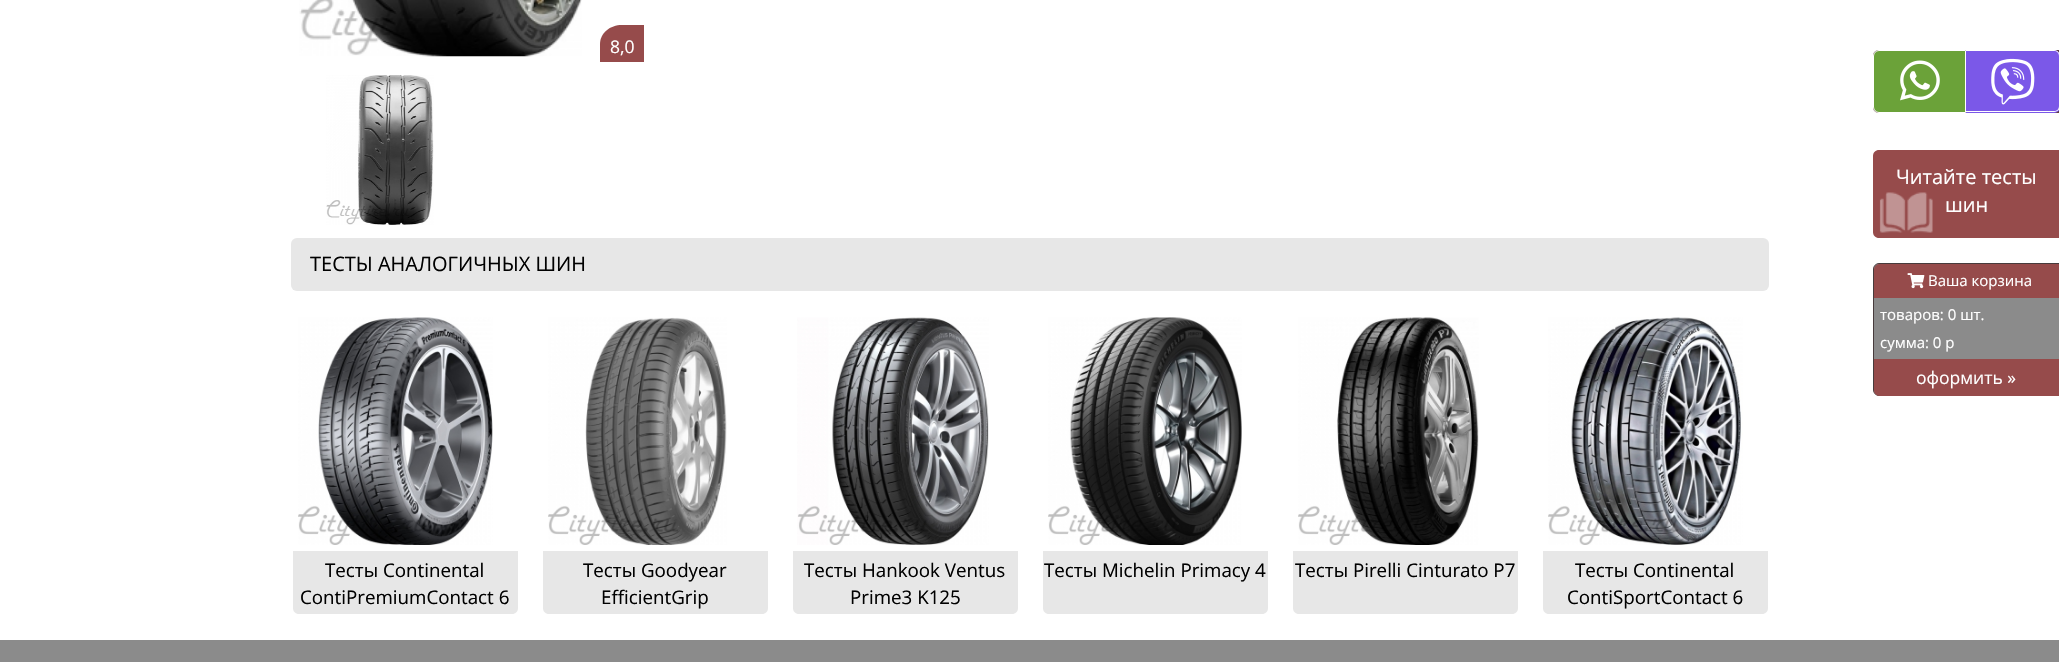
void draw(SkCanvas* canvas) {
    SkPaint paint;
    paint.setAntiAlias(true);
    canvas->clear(0xFFFFFFFF);
    canvas->drawImageRect(SkImages::DeferredFromEncodedData(SkData::MakeFromFileName("img1.png")), SkRect::MakeXYWH(299, 0, 283, 57), SkSamplingOptions());
    paint.setColor(0xFF964B4B);
    canvas->drawPath(SkPathBuilder().moveTo(622, 25).lineTo(644, 25).lineTo(644, 62).lineTo(600, 62).lineTo(600, 44).cubicTo(600, 33, 610, 25, 622, 25).close().detach(), paint);
    SkFont font1(fontMgr->matchFamilyStyle("Open Sans", SkFontStyle::Normal()), 17.5f);
    font1.setSubpixel(true);
    paint.setColor(0xFFFFFFFF);
    canvas->drawString("8,0", 610, 53, font1, paint);
    canvas->drawImageRect(SkImages::DeferredFromEncodedData(SkData::MakeFromFileName("img2.png")), SkRect::MakeXYWH(326, 75, 108, 150), SkSamplingOptions());
    paint.setColor(0xFFE7E7E7);
    canvas->drawRoundRect(SkRect::MakeXYWH(291, 238, 1478, 53), 6, 6, paint);
    SkFont font2(fontMgr->matchFamilyStyle("Open Sans", SkFontStyle::Normal()), 20);
    font2.setSubpixel(true);
    paint.setColor(0xFF000000);
    canvas->drawString("ТЕСТЫ АНАЛОГИЧНЫХ ШИН", 310, 271, font2, paint);
    canvas->drawImageRect(SkImages::DeferredFromEncodedData(SkData::MakeFromFileName("img3.png")), SkRect::MakeXYWH(298, 317, 195, 228), SkSamplingOptions());
    paint.setColor(0xFFE7E7E7);
    canvas->drawPath(SkPathBuilder().moveTo(293, 551).lineTo(518, 551).lineTo(518, 608).cubicTo(518, 611.5f, 515.5f, 614, 512, 614).lineTo(299, 614).cubicTo(295.5f, 614, 293, 611.5f, 293, 608).close().detach(), paint);
    SkFont font3(fontMgr->matchFamilyStyle("Open Sans", SkFontStyle::Normal()), 18.75f);
    font3.setSubpixel(true);
    paint.setColor(0xFF000000);
    canvas->drawString("Тесты Continental", 325, 577, font3, paint);
    canvas->drawString("ContiPremiumContact 6", 300, 604, font3, paint);
    canvas->drawImageRect(SkImages::DeferredFromEncodedData(SkData::MakeFromFileName("img4.png")), SkRect::MakeXYWH(548, 317, 179, 228), SkSamplingOptions());
    paint.setColor(0xFFE7E7E7);
    canvas->drawPath(SkPathBuilder().moveTo(543, 551).lineTo(768, 551).lineTo(768, 608).cubicTo(768, 611.5f, 765.5f, 614, 762, 614).lineTo(549, 614).cubicTo(545.5f, 614, 543, 611.5f, 543, 608).close().detach(), paint);
    paint.setColor(0xFF000000);
    canvas->drawString("Тесты Goodyear", 583, 577, font3, paint);
    canvas->drawString("EfficientGrip", 601, 604, font3, paint);
    canvas->drawImageRect(SkImages::DeferredFromEncodedData(SkData::MakeFromFileName("img5.png")), SkRect::MakeXYWH(797, 317, 192, 228), SkSamplingOptions());
    paint.setColor(0xFFE7E7E7);
    canvas->drawPath(SkPathBuilder().moveTo(793, 551).lineTo(1018, 551).lineTo(1018, 608).cubicTo(1018, 611.5f, 1015.5f, 614, 1012, 614).lineTo(799, 614).cubicTo(795.5f, 614, 793, 611.5f, 793, 608).close().detach(), paint);
    paint.setColor(0xFF000000);
    canvas->drawString("Тесты Hankook Ventus", 804, 577, font3, paint);
    canvas->drawString("Prime3 K125", 850, 604, font3, paint);
    canvas->drawImageRect(SkImages::DeferredFromEncodedData(SkData::MakeFromFileName("img6.png")), SkRect::MakeXYWH(1048, 317, 194, 228), SkSamplingOptions());
    paint.setColor(0xFFE7E7E7);
    canvas->drawPath(SkPathBuilder().moveTo(1043, 551).lineTo(1268, 551).lineTo(1268, 608).cubicTo(1268, 611.5f, 1265.5f, 614, 1262, 614).lineTo(1049, 614).cubicTo(1045.5f, 614, 1043, 611.5f, 1043, 608).close().detach(), paint);
    paint.setColor(0xFF000000);
    canvas->drawString("Тесты Michelin Primacy 4", 1044, 577, font3, paint);
    canvas->drawImageRect(SkImages::DeferredFromEncodedData(SkData::MakeFromFileName("img7.png")), SkRect::MakeXYWH(1298, 317, 181, 228), SkSamplingOptions());
    paint.setColor(0xFFE7E7E7);
    canvas->drawPath(SkPathBuilder().moveTo(1293, 551).lineTo(1518, 551).lineTo(1518, 608).cubicTo(1518, 611.5f, 1515.5f, 614, 1512, 614).lineTo(1299, 614).cubicTo(1295.5f, 614, 1293, 611.5f, 1293, 608).close().detach(), paint);
    paint.setColor(0xFF000000);
    canvas->drawString("Тесты Pirelli Cinturato P7", 1295, 577, font3, paint);
    canvas->drawImageRect(SkImages::DeferredFromEncodedData(SkData::MakeFromFileName("img8.png")), SkRect::MakeXYWH(1548, 317, 195, 228), SkSamplingOptions());
    paint.setColor(0xFFE7E7E7);
    canvas->drawPath(SkPathBuilder().moveTo(1543, 551).lineTo(1768, 551).lineTo(1768, 608).cubicTo(1768, 611.5f, 1765.5f, 614, 1762, 614).lineTo(1549, 614).cubicTo(1545.5f, 614, 1543, 611.5f, 1543, 608).close().detach(), paint);
    paint.setColor(0xFF000000);
    canvas->drawString("Тесты Continental", 1575, 577, font3, paint);
    canvas->drawString("ContiSportContact 6", 1567, 604, font3, paint);
    paint.setColor(0xFF633F42);
    canvas->drawPath(SkPathBuilder().moveTo(1879, 50).lineTo(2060, 50).lineTo(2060, 113).lineTo(1879, 113).cubicTo(1875.5f, 113, 1873, 110.5f, 1873, 107).lineTo(1873, 56).cubicTo(1873, 52.5f, 1875.5f, 50, 1879, 50).close().detach(), paint);
    paint.setColor(0xFF6BA239);
    canvas->drawPath(SkPathBuilder().moveTo(1879, 50.5f).lineTo(1965.5f, 50.5f).lineTo(1965.5f, 112.5f).lineTo(1879, 112.5f).cubicTo(1876, 112.5f, 1873.5f, 110, 1873.5f, 107).lineTo(1873.5f, 56).cubicTo(1873.5f, 53, 1876, 50.5f, 1879, 50.5f).close().detach(), paint);
    paint.setStyle(SkPaint::kStroke_Style);
    paint.setStrokeWidth(1);
    paint.setColor(0xFFFFFFFF);
    canvas->drawPath(SkPathBuilder().moveTo(1879, 50.5f).lineTo(1965.5f, 50.5f).lineTo(1965.5f, 112.5f).lineTo(1879, 112.5f).cubicTo(1876, 112.5f, 1873.5f, 110, 1873.5f, 107).lineTo(1873.5f, 56).cubicTo(1873.5f, 53, 1876, 50.5f, 1879, 50.5f).close().detach(), paint);
    canvas->drawImageRect(SkImages::DeferredFromEncodedData(SkData::MakeFromFileName("img9.png")), SkRect::MakeXYWH(1900, 60, 40, 41), SkSamplingOptions());
    paint.setStyle(SkPaint::kFill_Style);
    paint.setColor(0xFF7B58E8);
    canvas->drawPath(SkPathBuilder().moveTo(1966, 50).lineTo(2054, 50).cubicTo(2057.5f, 50, 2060, 52.5f, 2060, 56).lineTo(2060, 107).cubicTo(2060, 110.5f, 2057.5f, 113, 2054, 113).lineTo(1966, 113).close().detach(), paint);
    paint.setColor(0xFFFFFFFF);
    canvas->drawPath(SkPathBuilder(SkPathFillType::kEvenOdd).moveTo(1966, 50).lineTo(2054, 50).cubicTo(2057, 50, 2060, 53, 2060, 56).lineTo(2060, 106).cubicTo(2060, 110, 2057, 112, 2054, 112).lineTo(1966, 112).close().moveTo(1966, 51).lineTo(2054, 51).cubicTo(2057, 51, 2059, 53, 2059, 56).lineTo(2059, 106).cubicTo(2059, 109, 2057, 111, 2054, 111).lineTo(1966, 111).close().detach(), paint);
    canvas->drawImageRect(SkImages::DeferredFromEncodedData(SkData::MakeFromFileName("img10.png")), SkRect::MakeXYWH(1991, 58, 44, 47), SkSamplingOptions());
    paint.setColor(0xFF964B4B);
    canvas->drawPath(SkPathBuilder().moveTo(1879, 150).lineTo(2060, 150).lineTo(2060, 238).lineTo(1879, 238).cubicTo(1875.5f, 238, 1873, 235.5f, 1873, 232).lineTo(1873, 156).cubicTo(1873, 152.5f, 1875.5f, 150, 1879, 150).close().detach(), paint);
    canvas->drawImageRect(SkImages::DeferredFromEncodedData(SkData::MakeFromFileName("img11.png")), SkRect::MakeXYWH(1879, 192, 54, 41), SkSamplingOptions());
    paint.setColor(0xFFFFFFFF);
    canvas->drawString("Читайте тесты", 1896, 184, font2, paint);
    canvas->drawString("шин", 1945, 212, font2, paint);
    paint.setColor(0xFF8B8B8B);
    canvas->drawPath(SkPathBuilder().moveTo(1879, 263.5f).lineTo(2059.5f, 263.5f).lineTo(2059.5f, 395.5f).lineTo(1879, 395.5f).cubicTo(1876, 395.5f, 1873.5f, 393, 1873.5f, 390).lineTo(1873.5f, 269).cubicTo(1873.5f, 266, 1876, 263.5f, 1879, 263.5f).close().detach(), paint);
    paint.setStyle(SkPaint::kStroke_Style);
    paint.setColor(0xFF473B3C);
    canvas->drawPath(SkPathBuilder().moveTo(1879, 263.5f).lineTo(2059.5f, 263.5f).lineTo(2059.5f, 395.5f).lineTo(1879, 395.5f).cubicTo(1876, 395.5f, 1873.5f, 393, 1873.5f, 390).lineTo(1873.5f, 269).cubicTo(1873.5f, 266, 1876, 263.5f, 1879, 263.5f).close().detach(), paint);
    paint.setStyle(SkPaint::kFill_Style);
    paint.setColor(0xFF964B4B);
    canvas->drawPath(SkPathBuilder().moveTo(1880, 264).lineTo(2059, 264).lineTo(2059, 298).lineTo(1874, 298).lineTo(1874, 270).cubicTo(1874, 266.5f, 1876.5f, 264, 1880, 264).close().detach(), paint);
    canvas->drawImageRect(SkImages::DeferredFromEncodedData(SkData::MakeFromFileName("img12.png")), SkRect::MakeXYWH(1907, 273, 18, 16), SkSamplingOptions());
    SkFont font4(fontMgr->matchFamilyStyle("Open Sans", SkFontStyle::Normal()), 15);
    font4.setSubpixel(true);
    paint.setColor(0xFFFFFFFF);
    canvas->drawString("Ваша корзина", 1928, 286, font4, paint);
    canvas->drawString("товаров: 0 шт.", 1880, 320, font4, paint);
    canvas->drawString("сумма: 0 р", 1880, 348, font4, paint);
    paint.setColor(0xFF964B4B);
    canvas->drawPath(SkPathBuilder().moveTo(1874, 359).lineTo(2059, 359).lineTo(2059, 396).lineTo(1880, 396).cubicTo(1876.5f, 396, 1874, 393.5f, 1874, 390).close().detach(), paint);
    paint.setColor(0xFFFFFFFF);
    canvas->drawString("оформить »", 1916, 384, font1, paint);
    paint.setColor(0xFF8B8B8B);
    canvas->drawRect(SkRect::MakeXYWH(0, 640, 2059, 22), paint);
}
